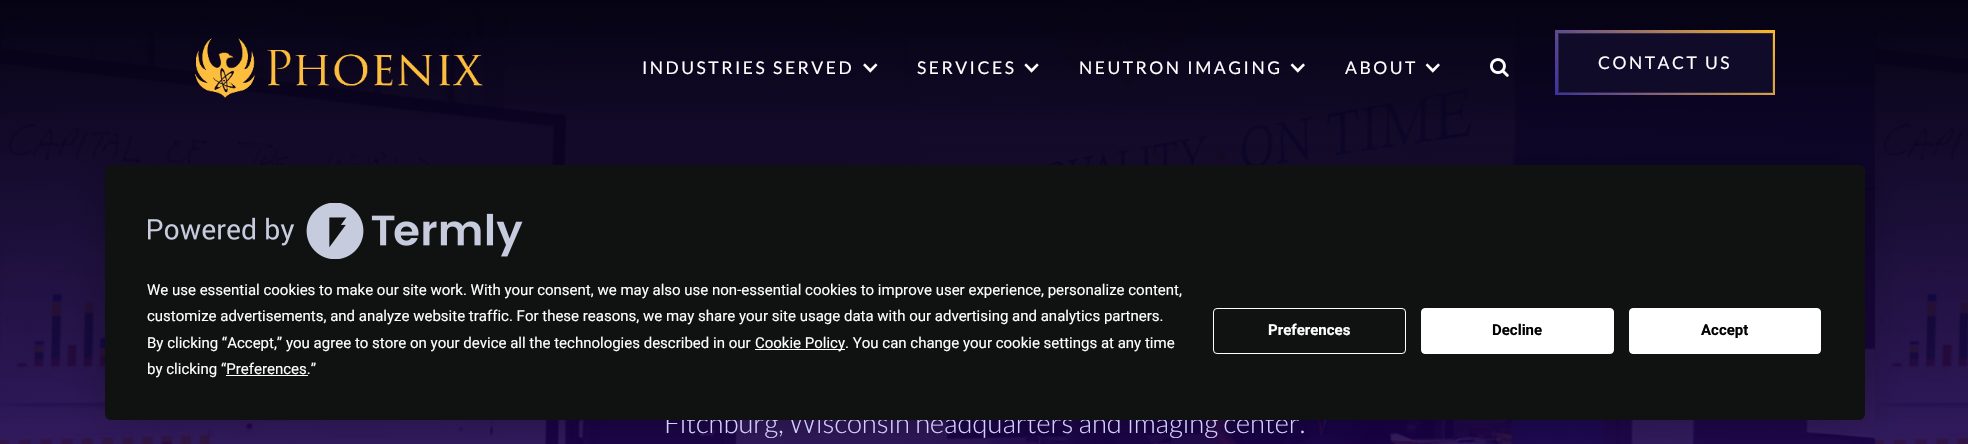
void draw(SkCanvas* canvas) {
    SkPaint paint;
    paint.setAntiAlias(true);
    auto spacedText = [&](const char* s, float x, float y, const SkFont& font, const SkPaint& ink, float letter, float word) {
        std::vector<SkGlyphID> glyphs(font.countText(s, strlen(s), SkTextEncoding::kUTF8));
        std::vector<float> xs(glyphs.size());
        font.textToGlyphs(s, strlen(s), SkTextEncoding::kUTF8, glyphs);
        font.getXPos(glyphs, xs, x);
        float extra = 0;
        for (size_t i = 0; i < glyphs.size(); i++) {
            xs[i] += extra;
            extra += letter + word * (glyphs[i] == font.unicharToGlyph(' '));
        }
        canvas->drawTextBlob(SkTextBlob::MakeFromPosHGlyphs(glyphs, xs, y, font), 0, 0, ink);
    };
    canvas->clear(0xFFFFFFFF);
    canvas->drawImageRect(SkImages::DeferredFromEncodedData(SkData::MakeFromFileName("img8.png")), SkRect::MakeXYWH(0, 0, 1968, 444), SkSamplingOptions());
    canvas->drawImageRect(SkImages::DeferredFromEncodedData(SkData::MakeFromFileName("img1.png")), SkRect::MakeXYWH(194, 38, 289, 60), SkSamplingOptions());
    SkFont font1(fontMgr->matchFamilyStyle("Lato", SkFontStyle::Normal()), 17.5f);
    font1.setSubpixel(true);
    paint.setColor(0xFFFFFFFF);
    spacedText("INDUSTRIES SERVED", 642, 74, font1, paint, 2.5f, 0);
    canvas->drawImageRect(SkImages::DeferredFromEncodedData(SkData::MakeFromFileName("img2.png")), SkRect::MakeXYWH(863, 63, 15, 10), SkSamplingOptions());
    spacedText("SERVICES", 917, 74, font1, paint, 2.5f, 0);
    canvas->drawImageRect(SkImages::DeferredFromEncodedData(SkData::MakeFromFileName("img3.png")), SkRect::MakeXYWH(1024, 63, 15, 10), SkSamplingOptions());
    spacedText("NEUTRON IMAGING", 1079, 74, font1, paint, 2.5f, 0);
    canvas->drawImageRect(SkImages::DeferredFromEncodedData(SkData::MakeFromFileName("img4.png")), SkRect::MakeXYWH(1290, 63, 15, 10), SkSamplingOptions());
    spacedText("ABOUT", 1345, 74, font1, paint, 2.5f, 0);
    canvas->drawImageRect(SkImages::DeferredFromEncodedData(SkData::MakeFromFileName("img5.png")), SkRect::MakeXYWH(1425, 63, 15, 10), SkSamplingOptions());
    canvas->drawImageRect(SkImages::DeferredFromEncodedData(SkData::MakeFromFileName("img6.png")), SkRect::MakeXYWH(1490, 58, 19, 19), SkSamplingOptions());
    {
        const SkColor colors[] = {0xFF3C30A7, 0xFFFFB822};
        const float stops[] = {0, 1};
        const SkPoint ends[] = {{1578, 126}, {1752, -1}};
        paint.setShader(SkGradientShader::MakeLinear(ends, colors, stops, 2, SkTileMode::kClamp));
        paint.setAlpha(255);
    }
    canvas->drawRect(SkRect::MakeXYWH(1555, 30, 220, 65), paint);
    paint.setShader(nullptr);
    paint.setColor(0xFF0F0B29);
    canvas->drawRect(SkRect::MakeXYWH(1558.5f, 33.5f, 214, 59), paint);
    paint.setStyle(SkPaint::kStroke_Style);
    paint.setStrokeWidth(1);
    paint.setColor(0xFF2C2843);
    canvas->drawRect(SkRect::MakeXYWH(1558.5f, 33.5f, 214, 59), paint);
    paint.setStyle(SkPaint::kFill_Style);
    paint.setColor(0xFFFFFFFF);
    spacedText("CONTACT US", 1598, 69, font1, paint, 2.5f, 0);
    paint.setColor(0x40000000);
    paint.setMaskFilter(SkMaskFilter::MakeBlur(kNormal_SkBlurStyle, 22));
    canvas->drawRoundRect(SkRect::MakeXYWH(105, 165, 1760, 255), 6, 6, paint);
    paint.setMaskFilter(nullptr);
    SkFont font2(fontMgr->matchFamilyStyle("Lato", SkFontStyle(300, SkFontStyle::kNormal_Width, SkFontStyle::kUpright_Slant)), 27.5f);
    font2.setSubpixel(true);
    paint.setColor(0xFFD4D0FA);
    canvas->drawString("Fitchburg, Wisconsin headquarters and imaging center.", 664, 433, font2, paint);
    paint.setColor(0xFF101212);
    canvas->drawRoundRect(SkRect::MakeXYWH(105, 165, 1760, 255), 6, 6, paint);
    canvas->drawImageRect(SkImages::DeferredFromEncodedData(SkData::MakeFromFileName("img7.png")), SkRect::MakeXYWH(148, 203, 375, 56), SkSamplingOptions());
    SkFont font3(fontMgr->matchFamilyStyle("Roboto", SkFontStyle::Normal()), 15);
    font3.setSubpixel(true);
    paint.setColor(0xFFFFFFFF);
    canvas->drawString("We use essential cookies to make our site work. With your consent, we may also use non-essential cookies to improve user experience, personalize content,", 147, 295, font3, paint);
    canvas->drawString("customize advertisements, and analyze website traffic. For these reasons, we may share your site usage data with our advertising and analytics partners.", 147, 321, font3, paint);
    canvas->drawString("By clicking “Accept,” you agree to store on your device all the technologies described in our", 147, 348, font3, paint);
    canvas->drawRect(SkRect::MakeXYWH(755, 349, 90, 1), paint);
    canvas->drawString("Cookie Policy. You can change your cookie settings at any time", 755, 348, font3, paint);
    canvas->drawString("by clicking “Preferences.”", 147, 374, font3, paint);
    canvas->drawRect(SkRect::MakeXYWH(226, 375, 82, 1), paint);
    paint.setStyle(SkPaint::kStroke_Style);
    canvas->drawRoundRect(SkRect::MakeXYWH(1213.5f, 308.5f, 192, 45), 3.5f, 3.5f, paint);
    SkFont font4(fontMgr->matchFamilyStyle("Roboto", SkFontStyle::Bold()), 15);
    font4.setSubpixel(true);
    paint.setStyle(SkPaint::kFill_Style);
    canvas->drawString("Preferences", 1268, 335, font4, paint);
    canvas->drawRoundRect(SkRect::MakeXYWH(1421.5f, 308.5f, 192, 45), 3.5f, 3.5f, paint);
    paint.setStyle(SkPaint::kStroke_Style);
    canvas->drawRoundRect(SkRect::MakeXYWH(1421.5f, 308.5f, 192, 45), 3.5f, 3.5f, paint);
    paint.setStyle(SkPaint::kFill_Style);
    paint.setColor(0xFF000000);
    canvas->drawString("Decline", 1492, 335, font4, paint);
    paint.setColor(0xFFFFFFFF);
    canvas->drawRoundRect(SkRect::MakeXYWH(1629.5f, 308.5f, 191, 45), 3.5f, 3.5f, paint);
    paint.setStyle(SkPaint::kStroke_Style);
    canvas->drawRoundRect(SkRect::MakeXYWH(1629.5f, 308.5f, 191, 45), 3.5f, 3.5f, paint);
    paint.setStyle(SkPaint::kFill_Style);
    paint.setColor(0xFF000000);
    canvas->drawString("Accept", 1701, 335, font4, paint);
}
